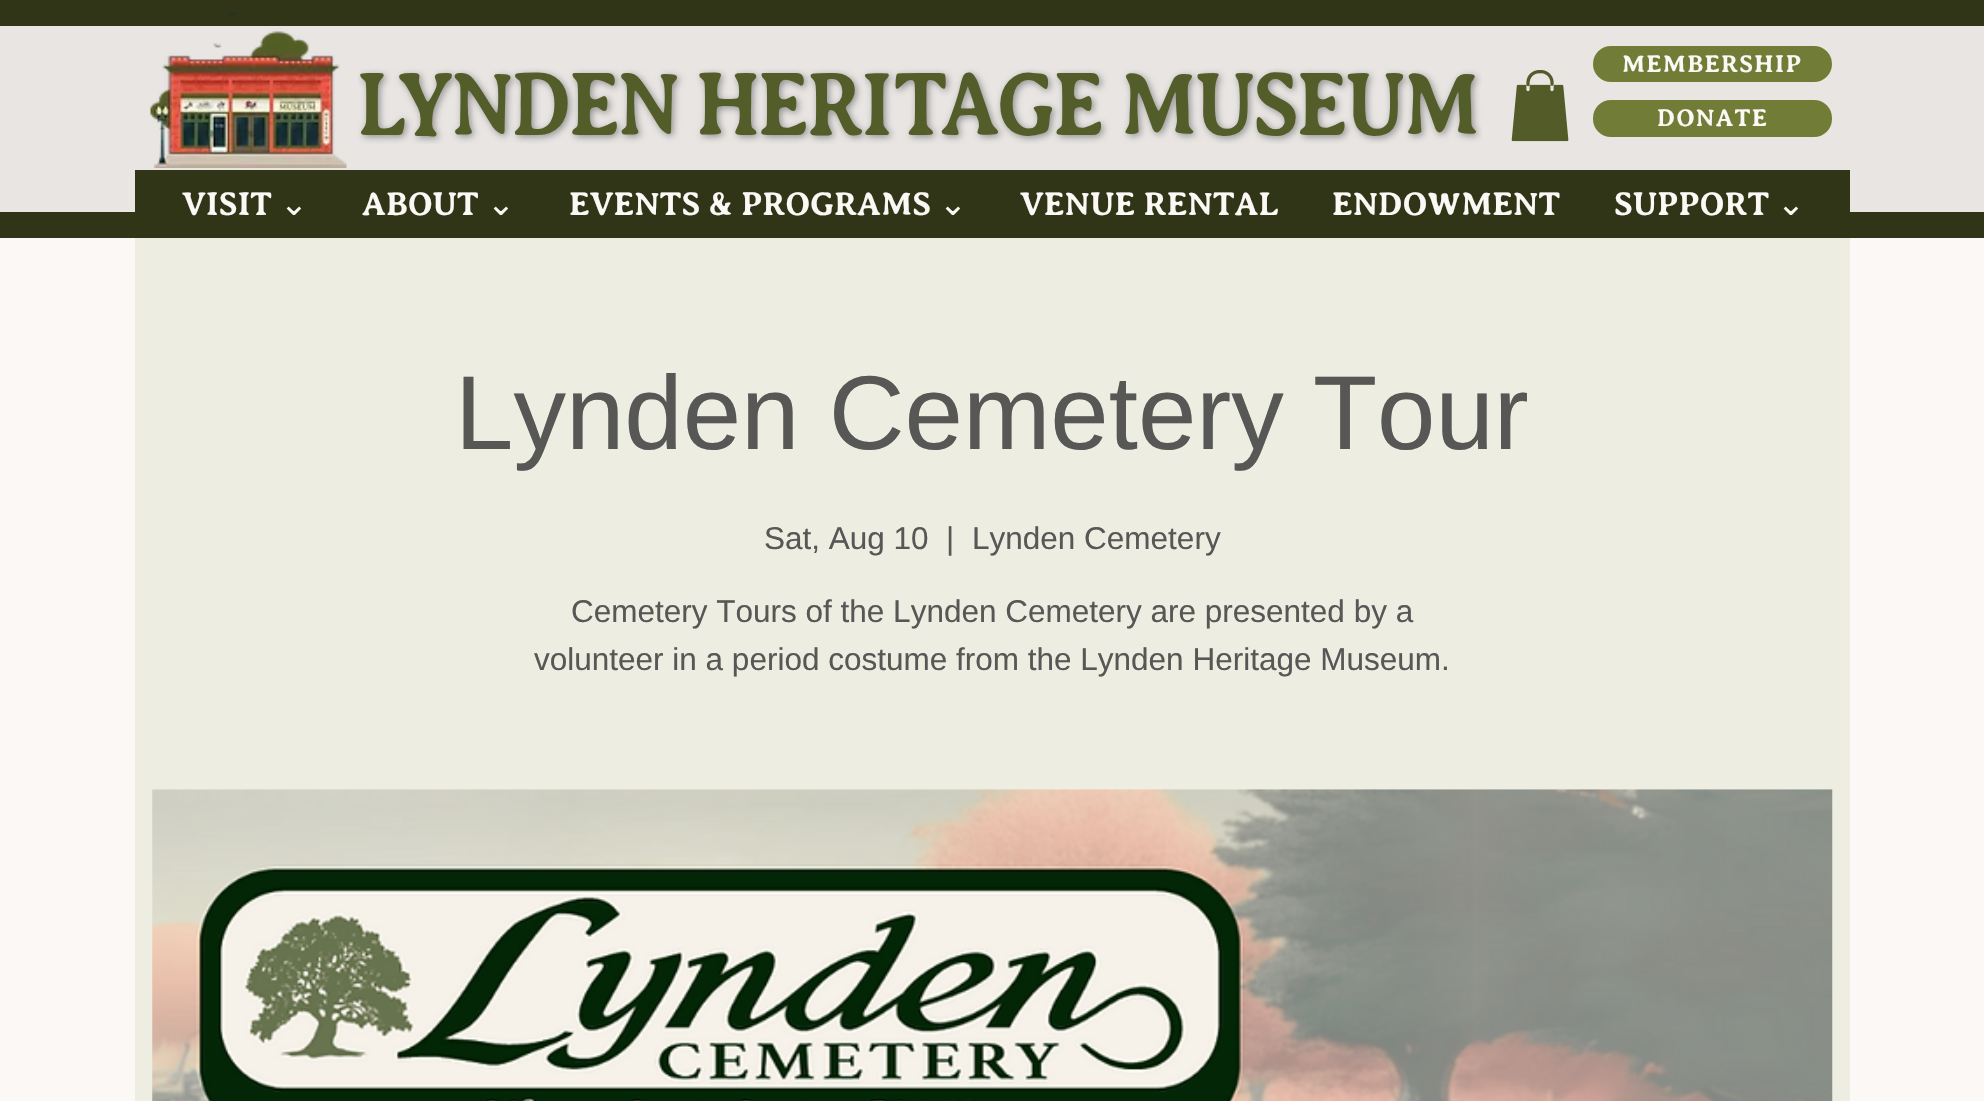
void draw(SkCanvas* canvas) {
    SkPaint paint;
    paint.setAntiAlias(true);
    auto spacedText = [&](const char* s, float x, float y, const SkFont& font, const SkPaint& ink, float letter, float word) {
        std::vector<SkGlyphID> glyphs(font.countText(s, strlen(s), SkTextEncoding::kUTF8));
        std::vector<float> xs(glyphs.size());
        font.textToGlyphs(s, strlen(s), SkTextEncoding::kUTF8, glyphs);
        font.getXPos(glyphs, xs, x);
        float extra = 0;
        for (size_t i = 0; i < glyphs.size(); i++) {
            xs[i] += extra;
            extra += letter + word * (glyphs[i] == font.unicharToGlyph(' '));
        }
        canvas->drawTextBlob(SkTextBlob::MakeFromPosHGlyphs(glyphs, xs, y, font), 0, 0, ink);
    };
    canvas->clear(0xFFFBF8F5);
    paint.setColor(0xFFE8E5E3);
    canvas->drawRect(SkRect::MakeXYWH(0, 26, 1984, 186), paint);
    paint.setColor(0xFF303517);
    canvas->drawRect(SkRect::MakeXYWH(0, 0, 1984, 26), paint);
    canvas->drawRect(SkRect::MakeXYWH(0, 212, 1984, 26), paint);
    canvas->drawImageRect(SkImages::DeferredFromEncodedData(SkData::MakeFromFileName("img1.png")), SkRect::MakeXYWH(150, 12, 197, 156), SkSamplingOptions());
    paint.setColor(0xFF717C36);
    canvas->drawRoundRect(SkRect::MakeXYWH(1593, 46, 239, 36), 18, 18, paint);
    SkFont font1(fontMgr->matchFamilyStyle("Averia Serif Libre", SkFontStyle::Bold()), 24.5f);
    font1.setSubpixel(true);
    paint.setColor(0xFFFBF8F5);
    spacedText("MEMBERSHIP", 1622, 72, font1, paint, 1.25f, 0);
    canvas->drawImageRect(SkImages::DeferredFromEncodedData(SkData::MakeFromFileName("img2.png")), SkRect::MakeXYWH(358, 68, 1124, 76), SkSamplingOptions());
    canvas->drawImageRect(SkImages::DeferredFromEncodedData(SkData::MakeFromFileName("img3.png")), SkRect::MakeXYWH(1511, 70, 58, 72), SkSamplingOptions());
    paint.setColor(0xFF717C36);
    canvas->drawRoundRect(SkRect::MakeXYWH(1593, 100, 239, 37), 18, 18, paint);
    paint.setColor(0xFFFBF8F5);
    spacedText("DONATE", 1657, 126, font1, paint, 1.25f, 0);
    paint.setColor(0xFF303517);
    canvas->drawRect(SkRect::MakeXYWH(135, 170, 1715, 42), paint);
    SkFont font2(fontMgr->matchFamilyStyle("Averia Serif Libre", SkFontStyle::Bold()), 33.25f);
    font2.setSubpixel(true);
    paint.setColor(0xFFFBF8F5);
    canvas->drawString("VISIT", 182, 215, font2, paint);
    SkFont font3(fontMgr->matchFamilyStyle("DejaVu Sans", SkFontStyle::Normal()), 33.25f);
    font3.setSubpixel(true);
    canvas->drawString("⌄", 280, 215, font3, paint);
    canvas->drawString("ABOUT", 362, 215, font2, paint);
    canvas->drawString("⌄", 487, 215, font3, paint);
    canvas->drawString("EVENTS & PROGRAMS", 569, 215, font2, paint);
    canvas->drawString("⌄", 939, 215, font3, paint);
    canvas->drawString("VENUE RENTAL", 1020, 215, font2, paint);
    canvas->drawString("ENDOWMENT", 1332, 215, font2, paint);
    canvas->drawString("SUPPORT", 1614, 215, font2, paint);
    canvas->drawString("⌄", 1777, 215, font3, paint);
    paint.setColor(0xFFEDEDE2);
    canvas->drawRect(SkRect::MakeXYWH(135, 238, 1715, 863), paint);
    SkFont font4(fontMgr->matchFamilyStyle("Liberation Sans", SkFontStyle::Normal()), 105);
    font4.setSubpixel(true);
    paint.setColor(0xFF575755);
    canvas->drawString("Lynden Cemetery Tour", 455, 449, font4, paint);
    SkFont font5(fontMgr->matchFamilyStyle("Liberation Sans", SkFontStyle::Normal()), 31.5f);
    font5.setSubpixel(true);
    canvas->drawString("Sat, Aug 10", 764, 549, font5, paint);
    canvas->drawString("|", 946, 549, font5, paint);
    canvas->drawString("Lynden Cemetery", 972, 549, font5, paint);
    canvas->drawString("Cemetery Tours of the Lynden Cemetery are presented by a", 571, 622, font5, paint);
    canvas->drawString("volunteer in a period costume from the Lynden Heritage Museum.", 534, 670, font5, paint);
    canvas->drawImageRect(SkImages::DeferredFromEncodedData(SkData::MakeFromFileName("img4.png")), SkRect::MakeXYWH(152, 789, 1681, 312), SkSamplingOptions());
}
